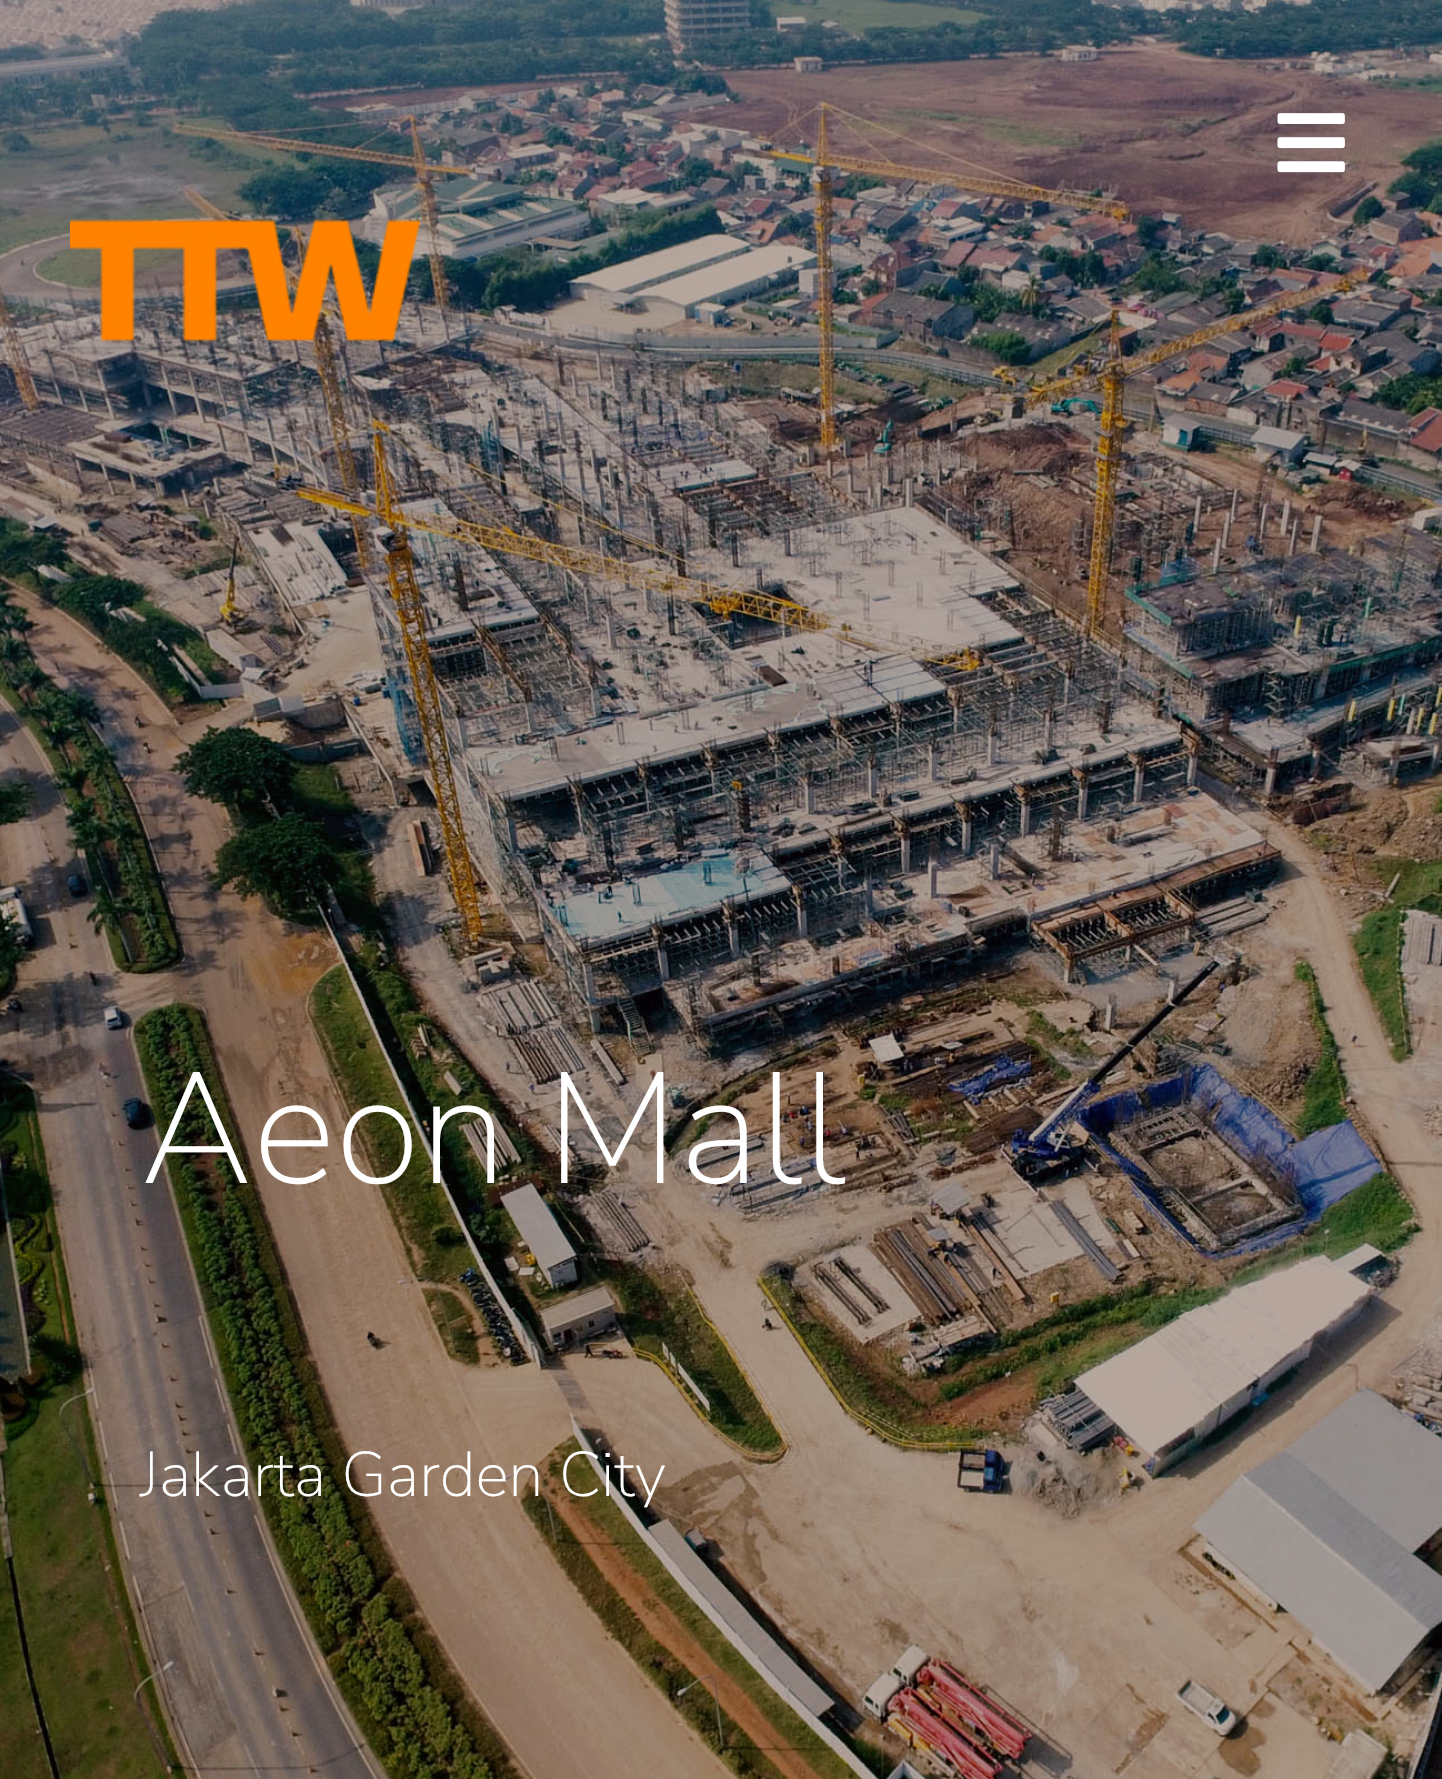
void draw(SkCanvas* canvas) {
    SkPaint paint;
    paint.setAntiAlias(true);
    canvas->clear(0xFFFFFFFF);
    canvas->drawImageRect(SkImages::DeferredFromEncodedData(SkData::MakeFromFileName("img3.png")), SkRect::MakeXYWH(0, 0, 1442, 1779), SkSamplingOptions());
    canvas->drawImageRect(SkImages::DeferredFromEncodedData(SkData::MakeFromFileName("img1.png")), SkRect::MakeXYWH(1277, 113, 68, 60), SkSamplingOptions());
    canvas->drawImageRect(SkImages::DeferredFromEncodedData(SkData::MakeFromFileName("img2.png")), SkRect::MakeXYWH(70, 219, 350, 124), SkSamplingOptions());
    SkFont font1(fontMgr->matchFamilyStyle("Nunito Sans", SkFontStyle(200, SkFontStyle::kNormal_Width, SkFontStyle::kUpright_Slant)), 157.5f);
    font1.setSubpixel(true);
    paint.setColor(0xFFFFFFFF);
    canvas->drawString("Aeon Mall", 140, 1183, font1, paint);
    SkFont font2(fontMgr->matchFamilyStyle("Nunito Sans", SkFontStyle(200, SkFontStyle::kNormal_Width, SkFontStyle::kUpright_Slant)), 63);
    font2.setSubpixel(true);
    canvas->drawString("Jakarta Garden City", 140, 1496, font2, paint);
}
